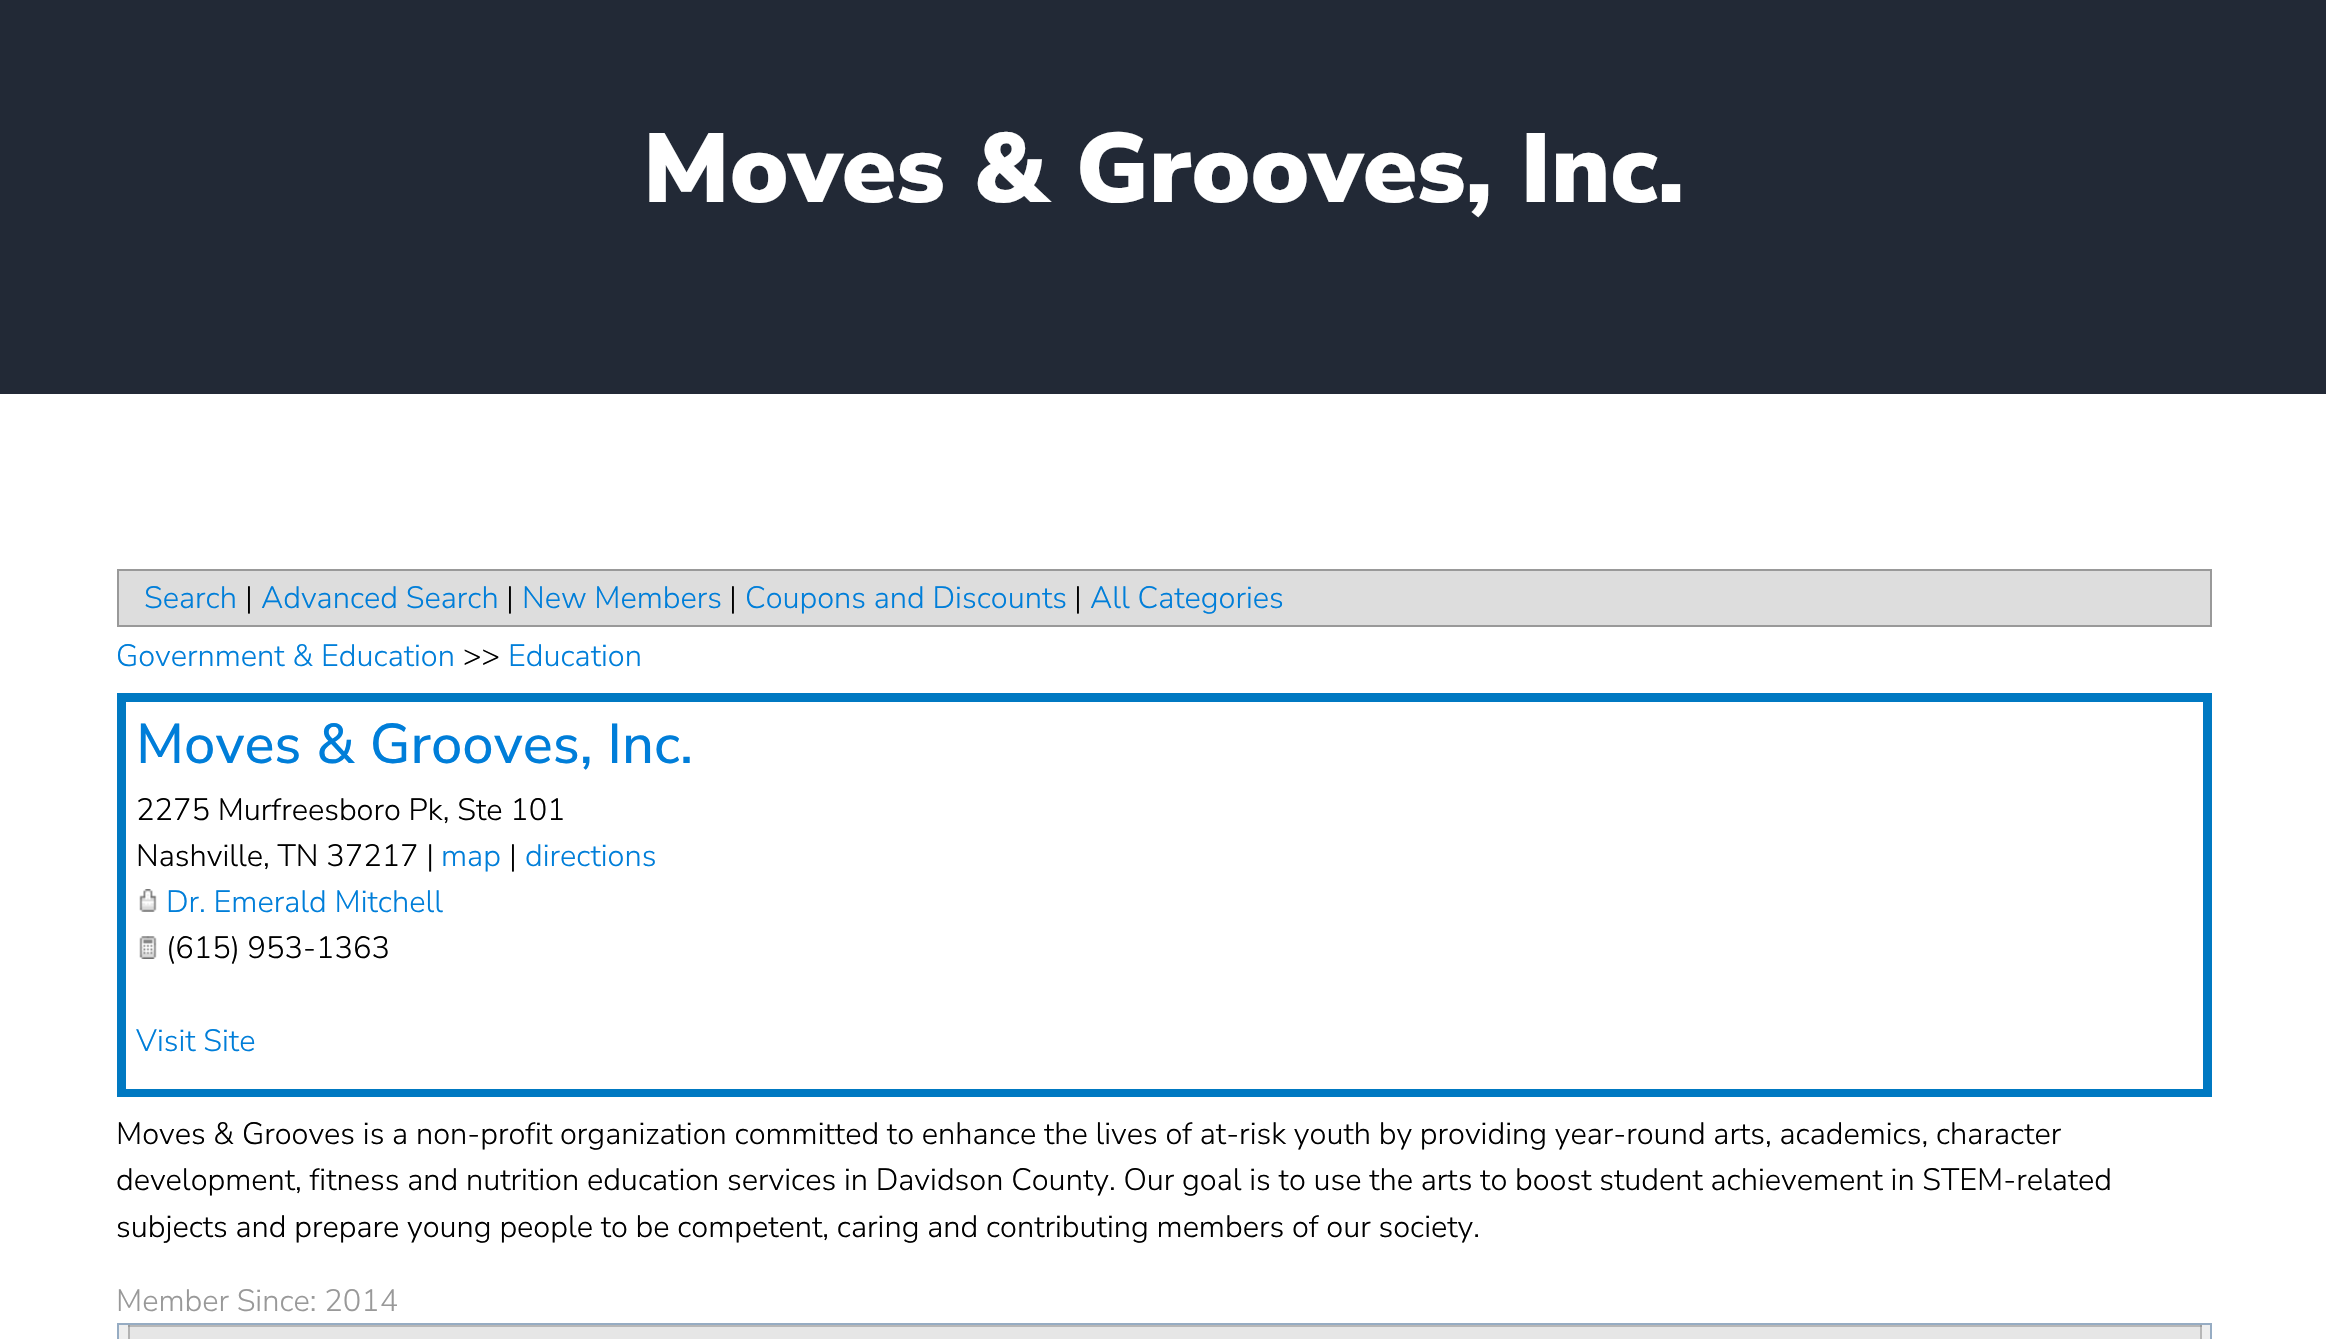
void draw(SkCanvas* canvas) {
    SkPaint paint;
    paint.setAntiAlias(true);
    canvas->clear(0xFFFFFFFF);
    paint.setColor(0xFF222936);
    canvas->drawRect(SkRect::MakeXYWH(0, 0, 2326, 394), paint);
    SkFont font1(fontMgr->matchFamilyStyle("Nunito Sans", SkFontStyle(900, SkFontStyle::kNormal_Width, SkFontStyle::kUpright_Slant)), 98);
    font1.setSubpixel(true);
    paint.setColor(0xFFFFFFFF);
    canvas->drawString("Moves & Grooves, Inc.", 643, 202, font1, paint);
    paint.setColor(0xFFDDDDDD);
    canvas->drawRect(SkRect::MakeXYWH(118, 570, 2093, 56), paint);
    paint.setStyle(SkPaint::kStroke_Style);
    paint.setStrokeWidth(2);
    paint.setColor(0xFF999999);
    canvas->drawRect(SkRect::MakeXYWH(118, 570, 2093, 56), paint);
    SkFont font2(fontMgr->matchFamilyStyle("Nunito Sans", SkFontStyle(300, SkFontStyle::kNormal_Width, SkFontStyle::kUpright_Slant)), 30.8f);
    font2.setSubpixel(true);
    paint.setStyle(SkPaint::kFill_Style);
    paint.setColor(0xFF007ED9);
    canvas->drawString("Search", 144, 608, font2, paint);
    paint.setColor(0xFF000000);
    canvas->drawString("|", 245, 608, font2, paint);
    paint.setColor(0xFF007ED9);
    canvas->drawString("Advanced Search", 261, 608, font2, paint);
    paint.setColor(0xFF000000);
    canvas->drawString("|", 506, 608, font2, paint);
    paint.setColor(0xFF007ED9);
    canvas->drawString("New Members", 522, 608, font2, paint);
    paint.setColor(0xFF000000);
    canvas->drawString("|", 729, 608, font2, paint);
    paint.setColor(0xFF007ED9);
    canvas->drawString("Coupons and Discounts", 745, 608, font2, paint);
    paint.setColor(0xFF000000);
    canvas->drawString("|", 1074, 608, font2, paint);
    paint.setColor(0xFF007ED9);
    canvas->drawString("All Categories", 1090, 608, font2, paint);
    canvas->drawString("Government & Education", 116, 666, font2, paint);
    paint.setColor(0xFF000000);
    canvas->drawString(">>", 463, 666, font2, paint);
    paint.setColor(0xFF007ED9);
    canvas->drawString("Education", 508, 666, font2, paint);
    paint.setColor(0xFF0079C2);
    canvas->drawRect(SkRect::MakeXYWH(117, 693, 2095, 404), paint);
    paint.setColor(0xFFFFFFFF);
    canvas->drawRect(SkRect::MakeXYWH(126, 702, 2077, 387), paint);
    SkFont font3(fontMgr->matchFamilyStyle("Nunito Sans", SkFontStyle(500, SkFontStyle::kNormal_Width, SkFontStyle::kUpright_Slant)), 56);
    font3.setSubpixel(true);
    paint.setColor(0xFF007ED9);
    canvas->drawString("Moves & Grooves, Inc.", 136, 763, font3, paint);
    paint.setColor(0xFF000000);
    canvas->drawString("2275 Murfreesboro Pk, Ste 101", 136, 820, font2, paint);
    canvas->drawString("Nashville, TN 37217 |", 136, 866, font2, paint);
    paint.setColor(0xFF007ED9);
    canvas->drawString("map", 441, 866, font2, paint);
    paint.setColor(0xFF000000);
    canvas->drawString("|", 509, 866, font2, paint);
    paint.setColor(0xFF007ED9);
    canvas->drawString("directions", 525, 866, font2, paint);
    canvas->drawImageRect(SkImages::DeferredFromEncodedData(SkData::MakeFromFileName("img1.png")), SkRect::MakeXYWH(139, 889, 18, 23), SkSamplingOptions());
    canvas->drawString("Dr. Emerald Mitchell", 166, 912, font2, paint);
    canvas->drawImageRect(SkImages::DeferredFromEncodedData(SkData::MakeFromFileName("img2.png")), SkRect::MakeXYWH(139, 936, 18, 23), SkSamplingOptions());
    paint.setColor(0xFF000000);
    canvas->drawString("(615) 953-1363", 166, 958, font2, paint);
    paint.setColor(0xFF007ED9);
    canvas->drawString("Visit Site", 136, 1051, font2, paint);
    paint.setColor(0xFF000000);
    canvas->drawString("Moves & Grooves is a non-profit organization committed to enhance the lives of at-risk youth by providing year-round arts, academics, character", 116, 1144, font2, paint);
    canvas->drawString("development, fitness and nutrition education services in Davidson County. Our goal is to use the arts to boost student achievement in STEM-related", 116, 1190, font2, paint);
    canvas->drawString("subjects and prepare young people to be competent, caring and contributing members of our society.", 116, 1237, font2, paint);
    paint.setColor(0xFF999999);
    canvas->drawString("Member Since: 2014", 116, 1311, font2, paint);
    paint.setColor(0xFFEEEEEE);
    canvas->drawRect(SkRect::MakeXYWH(119, 1325, 2091, 14), paint);
    paint.setColor(0xFFB7B7B7);
    canvas->drawRect(SkRect::MakeXYWH(2200, 1325, 2, 14), paint);
    paint.setStyle(SkPaint::kStroke_Style);
    paint.setColor(0xFF96ACC3);
    canvas->drawRect(SkRect::MakeXYWH(118, 1324, 2093, 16), paint);
    paint.setStyle(SkPaint::kFill_Style);
    paint.setColor(0xFFE6E6E6);
    canvas->drawRect(SkRect::MakeXYWH(130, 1327, 2070, 12), paint);
    paint.setColor(0xFFB3B3B3);
    canvas->drawRect(SkRect::MakeXYWH(128, 1327, 2, 12), paint);
    paint.setColor(0xFFB7B7B7);
    canvas->drawRect(SkRect::MakeXYWH(128, 1325, 2074, 2), paint);
    paint.setColor(0xFF9C9C9C);
    canvas->drawRect(SkRect::MakeXYWH(128, 1325, 2, 2), paint);
    canvas->drawRect(SkRect::MakeXYWH(2200, 1325, 2, 2), paint);
}
